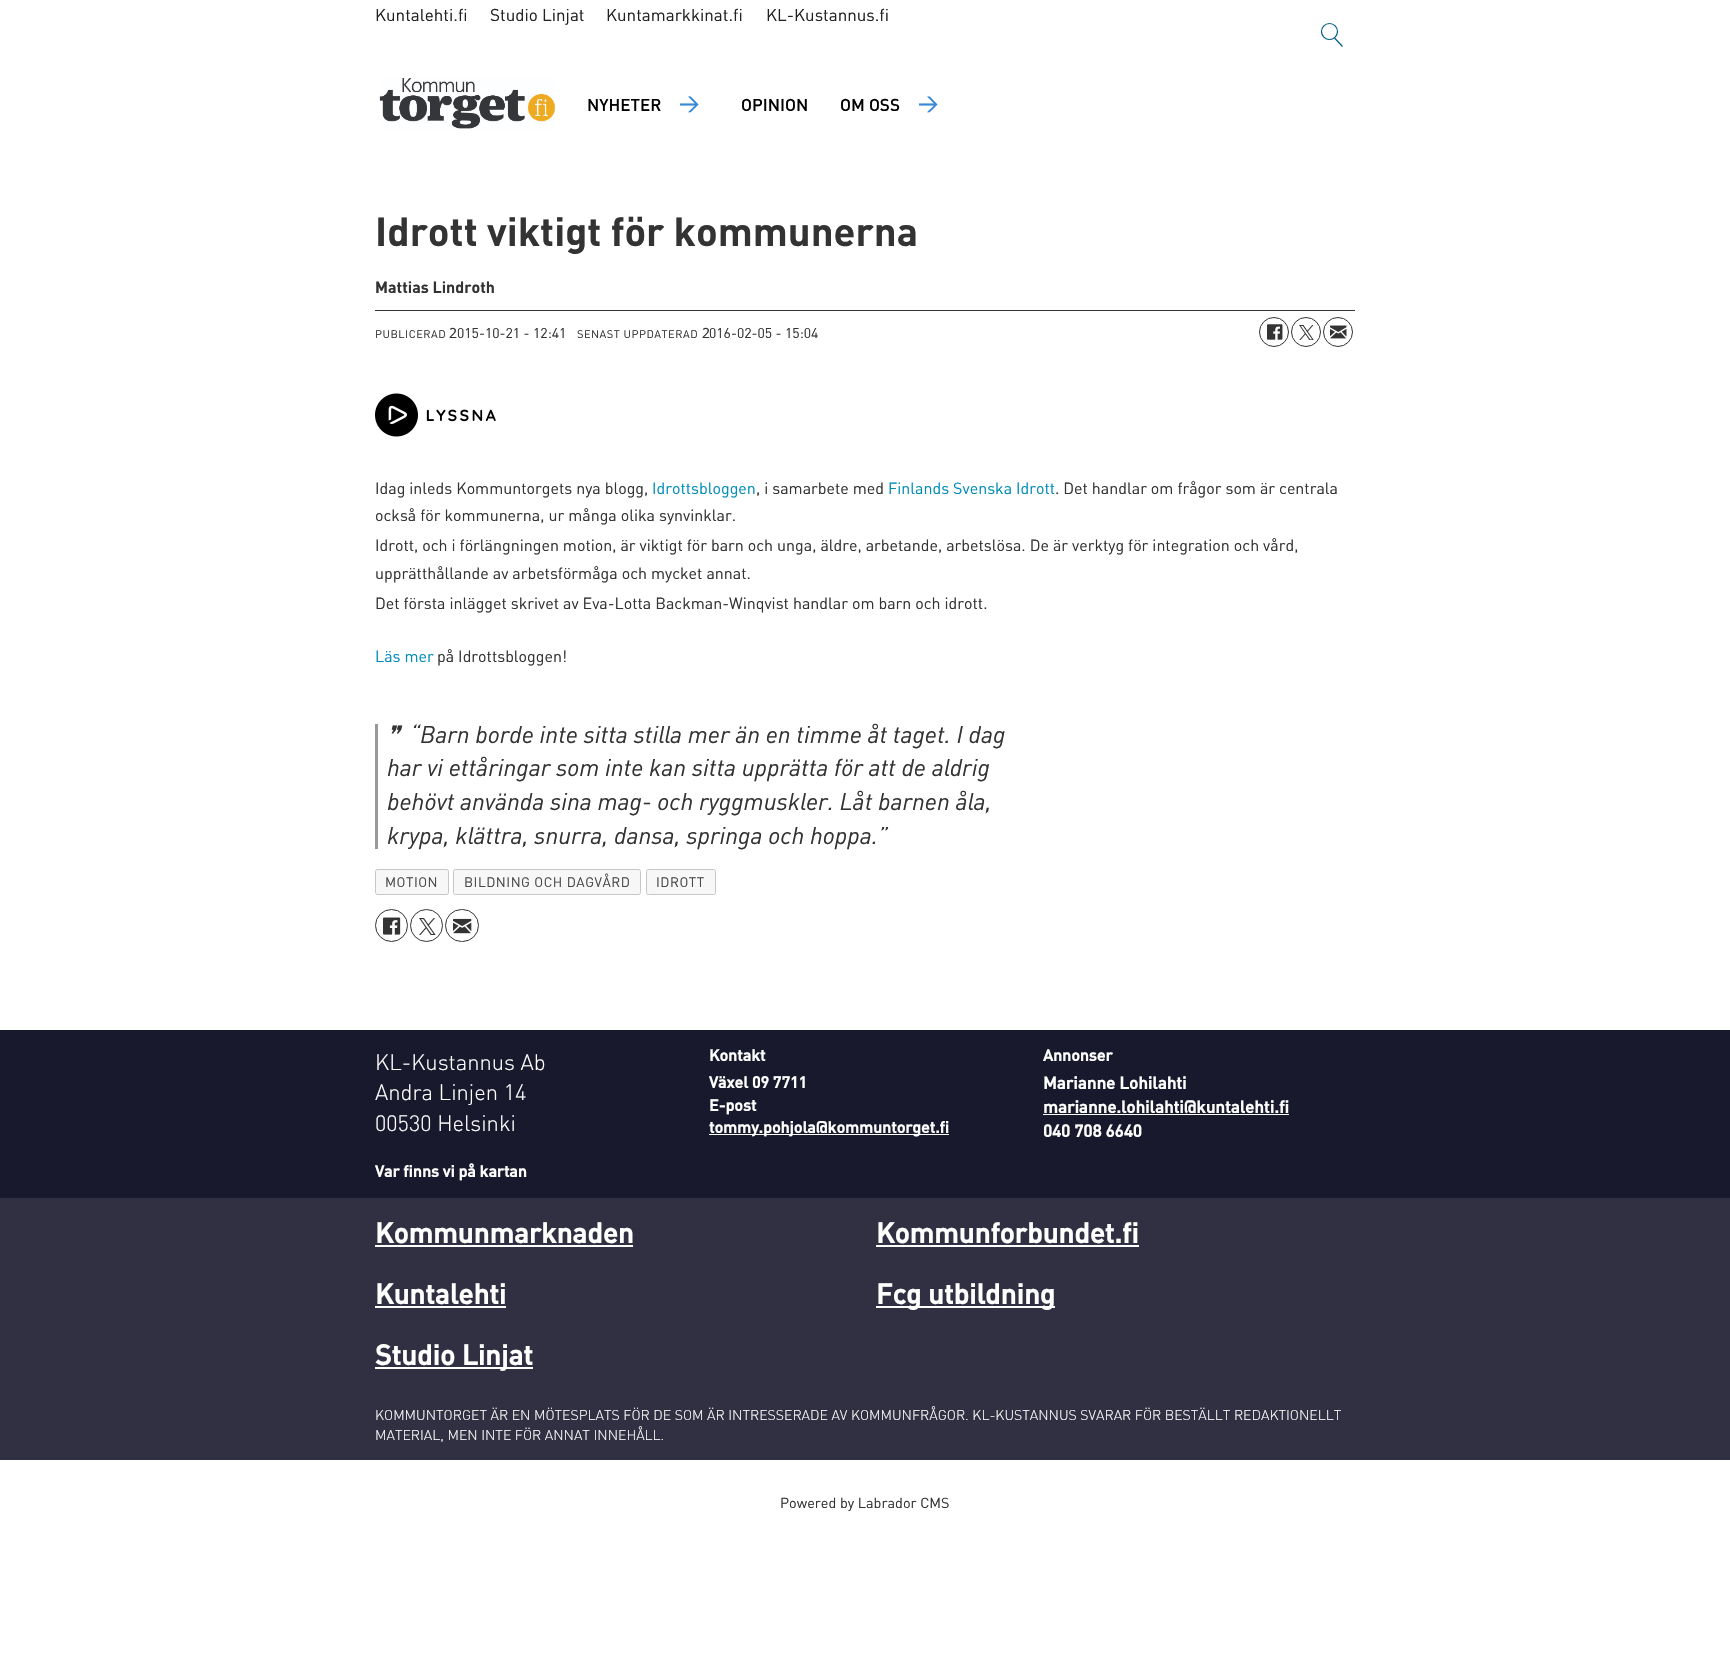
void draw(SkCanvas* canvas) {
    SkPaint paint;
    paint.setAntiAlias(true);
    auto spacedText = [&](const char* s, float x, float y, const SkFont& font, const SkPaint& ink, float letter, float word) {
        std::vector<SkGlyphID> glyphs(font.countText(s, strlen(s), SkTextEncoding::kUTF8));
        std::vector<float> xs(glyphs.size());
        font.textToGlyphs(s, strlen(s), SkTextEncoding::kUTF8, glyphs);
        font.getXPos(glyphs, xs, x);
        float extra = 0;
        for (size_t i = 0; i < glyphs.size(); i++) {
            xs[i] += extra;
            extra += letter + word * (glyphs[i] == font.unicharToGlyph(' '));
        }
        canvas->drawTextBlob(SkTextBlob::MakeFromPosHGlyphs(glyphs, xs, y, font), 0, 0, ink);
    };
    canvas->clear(0xFFFFFFFF);
    SkFont font1(fontMgr->matchFamilyStyle("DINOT", SkFontStyle::Normal()), 17);
    font1.setSubpixel(true);
    paint.setColor(0xFF222222);
    canvas->drawString("Kuntalehti.fi", 375, 21, font1, paint);
    canvas->drawString("Studio Linjat", 490, 21, font1, paint);
    canvas->drawString("Kuntamarkkinat.fi", 606, 21, font1, paint);
    canvas->drawString("KL-Kustannus.fi", 766, 21, font1, paint);
    paint.setStyle(SkPaint::kStroke_Style);
    paint.setStrokeWidth(1.2f);
    paint.setColor(0xFF005C83);
    canvas->drawCircle(1329.5f, 31.5f, 8, paint);
    canvas->drawPath(SkPathBuilder().moveTo(1334.5f, 38).lineTo(1342.5f, 46.5f).detach(), paint);
    canvas->drawImageRect(SkImages::DeferredFromEncodedData(SkData::MakeFromFileName("img1.png")), SkRect::MakeXYWH(379, 78, 176, 53), SkSamplingOptions());
    SkFont font2(fontMgr->matchFamilyStyle("DINOT", SkFontStyle(500, SkFontStyle::kNormal_Width, SkFontStyle::kUpright_Slant)), 17);
    font2.setSubpixel(true);
    paint.setStyle(SkPaint::kFill_Style);
    paint.setColor(0xFF000000);
    canvas->drawString("NYHETER", 587, 111, font2, paint);
    SkFont font3(fontMgr->matchFamilyStyle("DINOT", SkFontStyle(500, SkFontStyle::kNormal_Width, SkFontStyle::kUpright_Slant)), 20);
    font3.setSubpixel(true);
    paint.setColor(0xFF3788D6);
    canvas->drawString("→", 679, 110, font3, paint);
    paint.setColor(0xFF000000);
    canvas->drawString("OPINION", 741, 111, font2, paint);
    canvas->drawString("OM OSS", 840, 111, font2, paint);
    paint.setColor(0xFF3788D6);
    canvas->drawString("→", 918, 110, font3, paint);
    SkFont font4(fontMgr->matchFamilyStyle("DINOT", SkFontStyle::Bold()), 40);
    font4.setSubpixel(true);
    paint.setColor(0xFF333333);
    canvas->drawString("Idrott viktigt för kommunerna", 375, 246, font4, paint);
    canvas->drawRect(SkRect::MakeXYWH(375, 310, 980, 1), paint);
    SkFont font5(fontMgr->matchFamilyStyle("DINOT", SkFontStyle::Bold()), 16);
    font5.setSubpixel(true);
    canvas->drawString("Mattias Lindroth", 375, 293, font5, paint);
    SkFont font6(fontMgr->matchFamilyStyle("DINOT", SkFontStyle::Normal()), 11);
    font6.setSubpixel(true);
    spacedText("PUBLICERAD", 375, 338, font6, paint, 0.5f, 0);
    SkFont font7(fontMgr->matchFamilyStyle("Noto Sans", SkFontStyle::Normal()), 14);
    font7.setSubpixel(true);
    canvas->drawString("2", 449, 338, font7, paint);
    SkFont font8(fontMgr->matchFamilyStyle("DINOT", SkFontStyle::Normal()), 14);
    font8.setSubpixel(true);
    canvas->drawString("015-10-21 - 12:41", 457, 338, font8, paint);
    spacedText("SENAST UPPDATERAD", 577, 338, font6, paint, 0.5f, 0);
    canvas->drawString("2", 702, 338, font7, paint);
    canvas->drawString("016-02-05 - 15:04", 709, 338, font8, paint);
    paint.setStyle(SkPaint::kStroke_Style);
    paint.setStrokeWidth(1);
    canvas->drawCircle(1274, 332, 14.5f, paint);
    canvas->drawImageRect(SkImages::DeferredFromEncodedData(SkData::MakeFromFileName("img2.png")), SkRect::MakeXYWH(1267, 324, 16, 16), SkSamplingOptions());
    canvas->drawCircle(1306, 332, 14.5f, paint);
    canvas->drawImageRect(SkImages::DeferredFromEncodedData(SkData::MakeFromFileName("img3.png")), SkRect::MakeXYWH(1299, 325, 15, 15), SkSamplingOptions());
    canvas->drawCircle(1338, 332, 14.5f, paint);
    canvas->drawImageRect(SkImages::DeferredFromEncodedData(SkData::MakeFromFileName("img4.png")), SkRect::MakeXYWH(1330, 325, 17, 14), SkSamplingOptions());
    canvas->drawImageRect(SkImages::DeferredFromEncodedData(SkData::MakeFromFileName("img5.png")), SkRect::MakeXYWH(375, 393, 121, 44), SkSamplingOptions());
    SkFont font9(fontMgr->matchFamilyStyle("DINOT", SkFontStyle::Normal()), 16);
    font9.setSubpixel(true);
    paint.setStyle(SkPaint::kFill_Style);
    canvas->drawString("Idag inleds Kommuntorgets nya blogg,", 375, 494, font9, paint);
    paint.setColor(0xFF008CBA);
    canvas->drawString("Idrottsbloggen", 652, 494, font9, paint);
    paint.setColor(0xFF333333);
    canvas->drawString(", i samarbete med", 756, 494, font9, paint);
    paint.setColor(0xFF008CBA);
    canvas->drawString("Finlands Svenska Idrott", 888, 494, font9, paint);
    paint.setColor(0xFF333333);
    canvas->drawString(". Det handlar om frågor som är centrala", 1055, 494, font9, paint);
    canvas->drawString("också för kommunerna, ur många olika synvinklar.", 375, 521, font9, paint);
    canvas->drawString("Idrott, och i förlängningen motion, är viktigt för barn och unga, äldre, arbetande, arbetslösa. De är verktyg för integration och vård,", 375, 551, font9, paint);
    canvas->drawString("upprätthållande av arbetsförmåga och mycket annat.", 375, 579, font9, paint);
    canvas->drawString("Det första inlägget skrivet av Eva-Lotta Backman-Winqvist handlar om barn och idrott.", 375, 609, font9, paint);
    paint.setColor(0xFF008CBA);
    canvas->drawString("Läs mer", 375, 662, font9, paint);
    paint.setColor(0xFF333333);
    canvas->drawString("på Idrottsbloggen!", 437, 662, font9, paint);
    paint.setColor(0xFF999999);
    canvas->drawRect(SkRect::MakeXYWH(375, 724, 3, 125), paint);
    SkFont font10(fontMgr->matchFamilyStyle("DejaVu Sans", SkFontStyle::Italic()), 24);
    font10.setSubpixel(true);
    paint.setColor(0xFF333333);
    canvas->drawString("❞", 387, 743, font10, paint);
    SkFont font11(fontMgr->matchFamilyStyle("DINOT", SkFontStyle::Italic()), 24);
    font11.setSubpixel(true);
    canvas->drawString("“Barn borde inte sitta stilla mer än en timme åt taget. I dag", 410, 743, font11, paint);
    canvas->drawString("har vi ettåringar som inte kan sitta upprätta för att de aldrig", 387, 776, font11, paint);
    canvas->drawString("behövt använda sina mag- och ryggmuskler. Låt barnen åla,", 387, 810, font11, paint);
    canvas->drawString("krypa, klättra, snurra, dansa, springa och hoppa.”", 387, 844, font11, paint);
    paint.setColor(0xFFF7F7F7);
    canvas->drawRoundRect(SkRect::MakeXYWH(375.5f, 869.5f, 73, 25), 2, 2, paint);
    paint.setStyle(SkPaint::kStroke_Style);
    paint.setColor(0xFFC7C7C7);
    canvas->drawRoundRect(SkRect::MakeXYWH(375.5f, 869.5f, 73, 25), 2, 2, paint);
    SkFont font12(fontMgr->matchFamilyStyle("DINOT", SkFontStyle::Normal()), 13.6f);
    font12.setSubpixel(true);
    paint.setStyle(SkPaint::kFill_Style);
    paint.setColor(0xFF484848);
    spacedText("MOTION", 385, 887, font12, paint, 0.5f, 0);
    paint.setColor(0xFFF7F7F7);
    canvas->drawRoundRect(SkRect::MakeXYWH(453.5f, 869.5f, 187, 25), 2, 2, paint);
    paint.setStyle(SkPaint::kStroke_Style);
    paint.setColor(0xFFC7C7C7);
    canvas->drawRoundRect(SkRect::MakeXYWH(453.5f, 869.5f, 187, 25), 2, 2, paint);
    paint.setStyle(SkPaint::kFill_Style);
    paint.setColor(0xFF484848);
    spacedText("BILDNING OCH DAGVÅRD", 464, 887, font12, paint, 0.5f, 0);
    paint.setColor(0xFFF7F7F7);
    canvas->drawRoundRect(SkRect::MakeXYWH(646.5f, 869.5f, 69, 25), 2, 2, paint);
    paint.setStyle(SkPaint::kStroke_Style);
    paint.setColor(0xFFC7C7C7);
    canvas->drawRoundRect(SkRect::MakeXYWH(646.5f, 869.5f, 69, 25), 2, 2, paint);
    paint.setStyle(SkPaint::kFill_Style);
    paint.setColor(0xFF484848);
    spacedText("IDROTT", 656, 887, font12, paint, 0.5f, 0);
    paint.setStyle(SkPaint::kStroke_Style);
    paint.setColor(0xFF333333);
    canvas->drawCircle(391.5f, 925.5f, 16, paint);
    canvas->drawImageRect(SkImages::DeferredFromEncodedData(SkData::MakeFromFileName("img6.png")), SkRect::MakeXYWH(383, 917, 18, 18), SkSamplingOptions());
    canvas->drawCircle(426.5f, 925.5f, 16, paint);
    canvas->drawImageRect(SkImages::DeferredFromEncodedData(SkData::MakeFromFileName("img7.png")), SkRect::MakeXYWH(419, 918, 17, 17), SkSamplingOptions());
    canvas->drawRoundRect(SkRect::MakeXYWH(445.5f, 909.5f, 33, 32), 16, 16, paint);
    canvas->drawImageRect(SkImages::DeferredFromEncodedData(SkData::MakeFromFileName("img8.png")), SkRect::MakeXYWH(453, 918, 19, 16), SkSamplingOptions());
    paint.setStyle(SkPaint::kFill_Style);
    paint.setColor(0xFF19192D);
    canvas->drawRect(SkRect::MakeXYWH(0, 1030, 1730, 168), paint);
    SkFont font13(fontMgr->matchFamilyStyle("DINOT", SkFontStyle(300, SkFontStyle::kNormal_Width, SkFontStyle::kUpright_Slant)), 22);
    font13.setSubpixel(true);
    paint.setColor(0xFFFFFFFF);
    canvas->drawString("KL-Kustannus Ab", 375, 1070, font13, paint);
    canvas->drawString("Andra Linjen 14", 375, 1100, font13, paint);
    canvas->drawString("00530 Helsinki", 375, 1131, font13, paint);
    SkFont font14(fontMgr->matchFamilyStyle("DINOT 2", SkFontStyle::Bold()), 16);
    font14.setSubpixel(true);
    canvas->drawString("Var finns vi på kartan", 375, 1177, font14, paint);
    canvas->drawString("Kontakt", 709, 1061, font14, paint);
    canvas->drawString("Växel 09 7711", 709, 1088, font14, paint);
    canvas->drawString("E-post", 709, 1111, font14, paint);
    canvas->drawRect(SkRect::MakeXYWH(709, 1134, 240, 1), paint);
    canvas->drawString("tommy.pohjola@kommuntorget.fi", 709, 1133, font14, paint);
    canvas->drawString("Annonser", 1043, 1061, font14, paint);
    SkFont font15(fontMgr->matchFamilyStyle("DINOT 2", SkFontStyle::Bold()), 17);
    font15.setSubpixel(true);
    canvas->drawString("Marianne Lohilahti", 1043, 1089, font15, paint);
    canvas->drawString("marianne.lohilahti@kuntalehti.fi", 1043, 1113, font15, paint);
    canvas->drawRect(SkRect::MakeXYWH(1043, 1114, 246, 1), paint);
    canvas->drawString("040 708 6640", 1043, 1137, font15, paint);
    paint.setColor(0xFF303042);
    canvas->drawRect(SkRect::MakeXYWH(0, 1198, 1730, 262), paint);
    SkFont font16(fontMgr->matchFamilyStyle("DINOT 2", SkFontStyle::Bold()), 28);
    font16.setSubpixel(true);
    paint.setColor(0xFFFFFFFF);
    canvas->drawString("Kommunmarknaden", 375, 1243, font16, paint);
    canvas->drawRect(SkRect::MakeXYWH(375, 1245, 258, 2), paint);
    canvas->drawString("Kuntalehti", 375, 1304, font16, paint);
    canvas->drawRect(SkRect::MakeXYWH(375, 1306, 131, 2), paint);
    canvas->drawRect(SkRect::MakeXYWH(375, 1367, 158, 2), paint);
    canvas->drawString("Studio Linjat", 375, 1365, font16, paint);
    canvas->drawString("Kommunforbundet.fi", 876, 1243, font16, paint);
    canvas->drawRect(SkRect::MakeXYWH(876, 1245, 263, 2), paint);
    canvas->drawRect(SkRect::MakeXYWH(876, 1306, 179, 2), paint);
    canvas->drawString("Fcg utbildning", 876, 1304, font16, paint);
    SkFont font17(fontMgr->matchFamilyStyle("DINOT", SkFontStyle(300, SkFontStyle::kNormal_Width, SkFontStyle::kUpright_Slant)), 14);
    font17.setSubpixel(true);
    canvas->drawString("KOMMUNTORGET ÄR EN MÖTESPLATS FÖR DE SOM ÄR INTRESSERADE AV KOMMUNFRÅGOR. KL-KUSTANNUS SVARAR FÖR BESTÄLLT REDAKTIONELLT", 375, 1420, font17, paint);
    canvas->drawString("MATERIAL, MEN INTE FÖR ANNAT INNEHÅLL.", 375, 1440, font17, paint);
    SkFont font18(fontMgr->matchFamilyStyle("DINOT", SkFontStyle::Normal()), 14.4f);
    font18.setSubpixel(true);
    paint.setColor(0xFF333333);
    canvas->drawString("Powered by Labrador CMS", 780, 1508, font18, paint);
}
